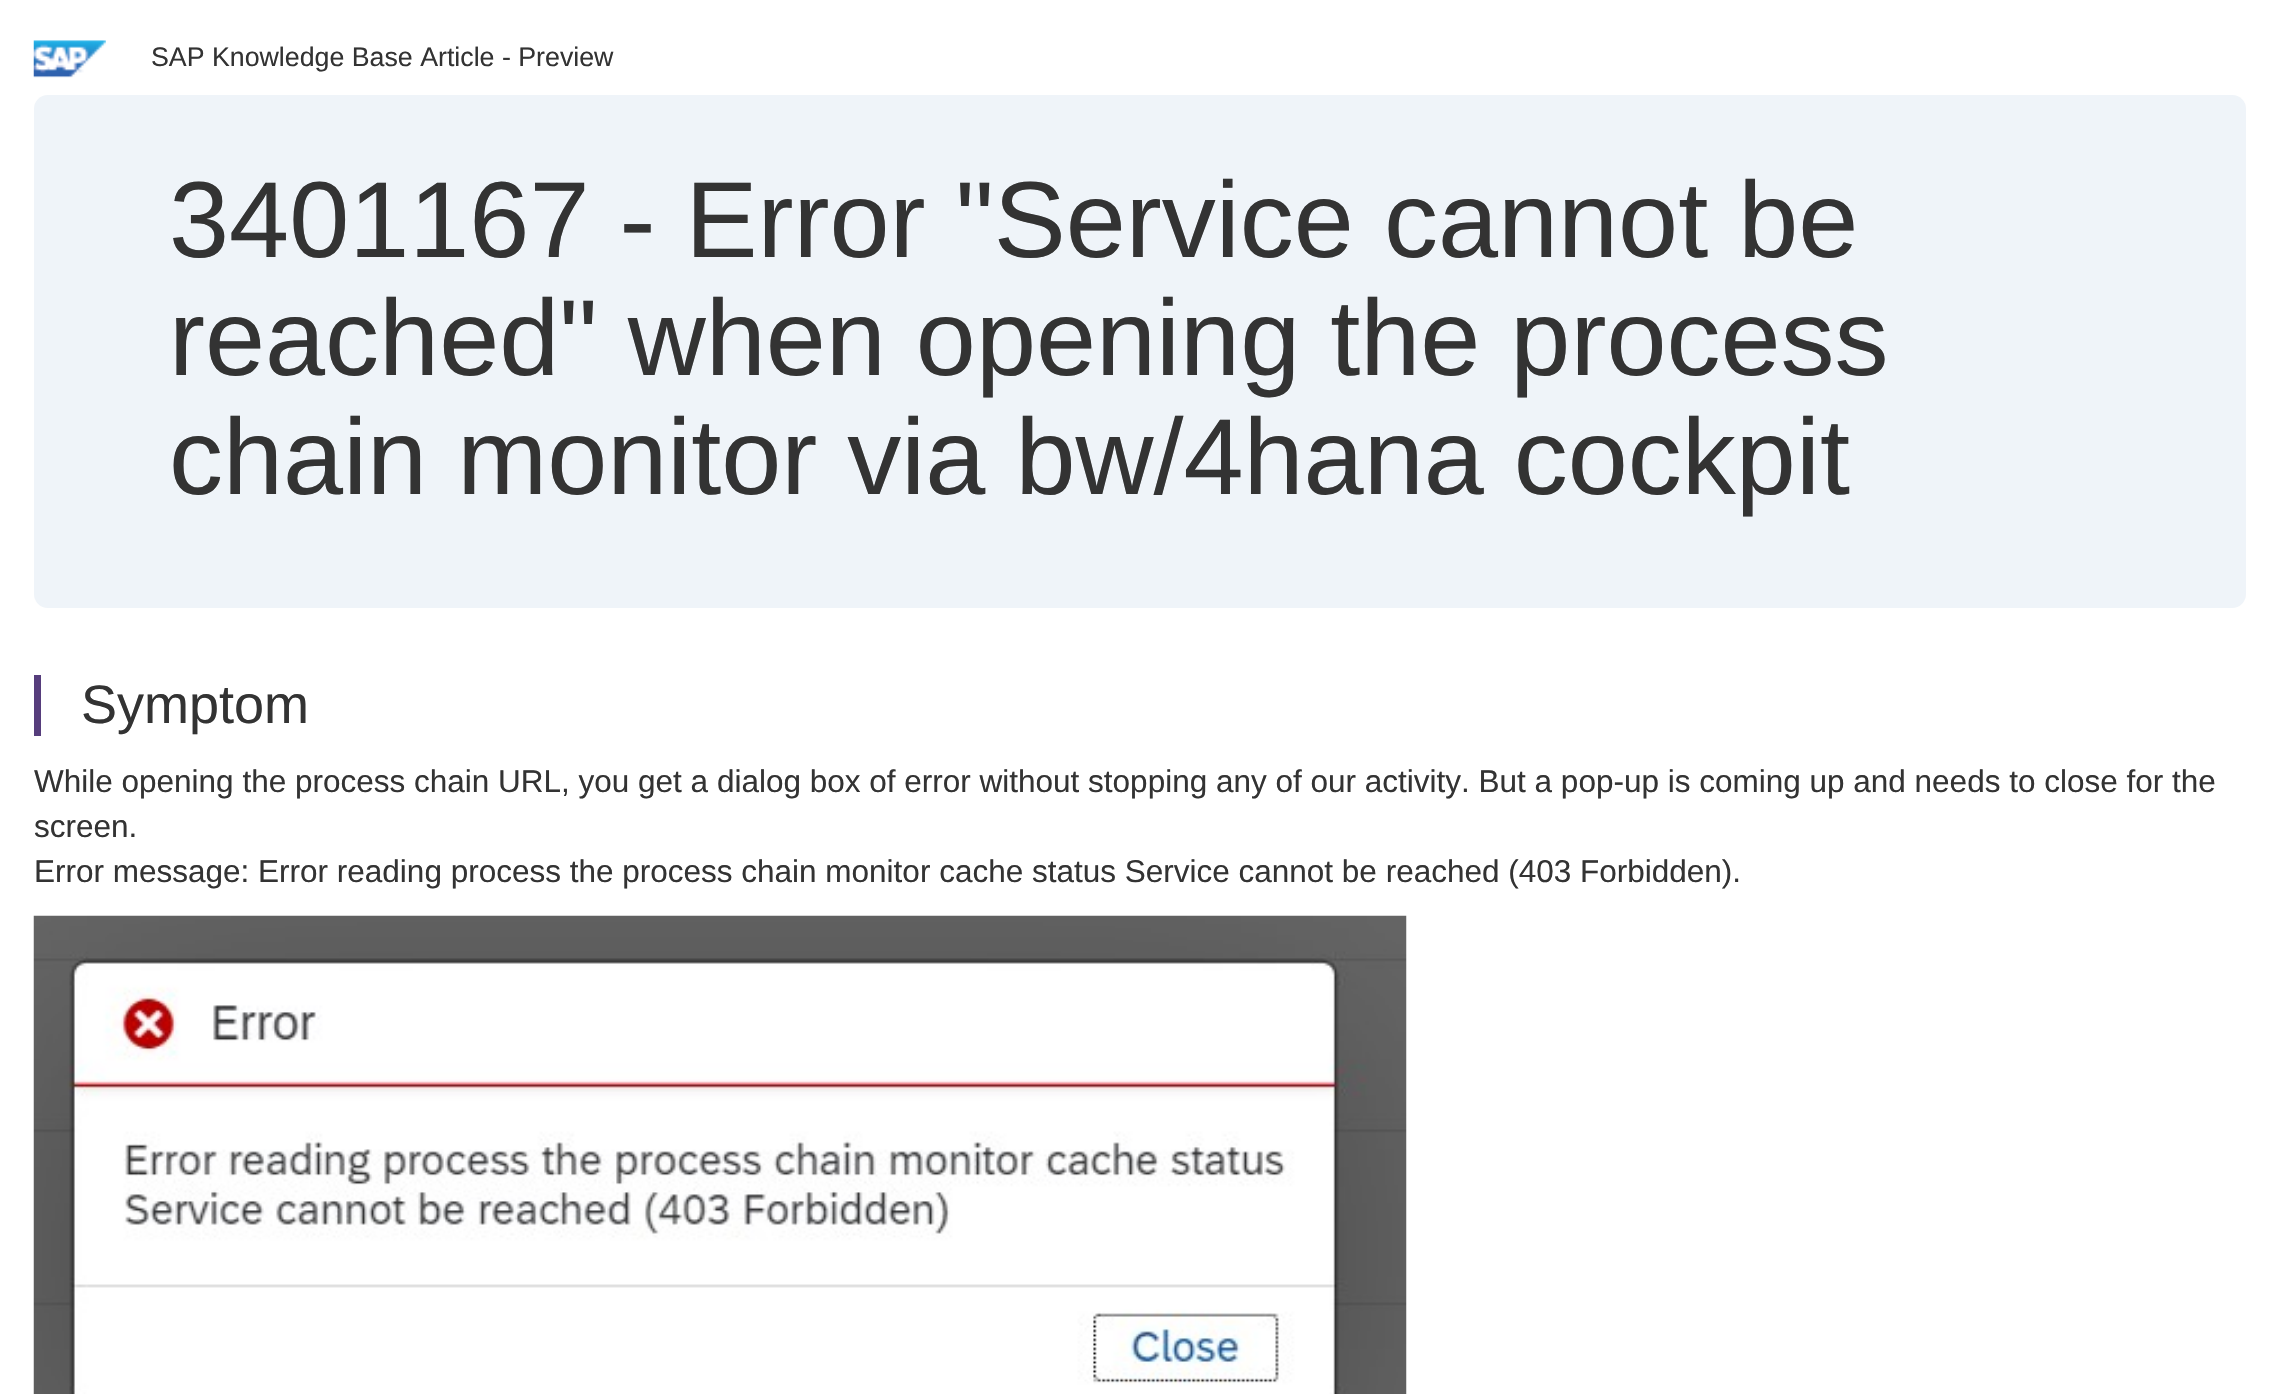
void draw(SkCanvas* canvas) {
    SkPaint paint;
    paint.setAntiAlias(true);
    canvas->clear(0xFFFFFFFF);
    canvas->drawImageRect(SkImages::DeferredFromEncodedData(SkData::MakeFromFileName("img1.png")), SkRect::MakeXYWH(33, 40, 73, 38), SkSamplingOptions());
    SkFont font1(fontMgr->matchFamilyStyle("Liberation Sans", SkFontStyle::Normal()), 26.75f);
    font1.setSubpixel(true);
    paint.setColor(0xFF333333);
    canvas->drawString("SAP Knowledge Base Article - Preview", 151, 66, font1, paint);
    paint.setColor(0xFFEFF4F9);
    canvas->drawRoundRect(SkRect::MakeXYWH(34, 95, 2212, 513), 14, 14, paint);
    SkFont font2(fontMgr->matchFamilyStyle("Liberation Sans", SkFontStyle::Normal()), 108);
    font2.setSubpixel(true);
    paint.setColor(0xFF333333);
    canvas->drawString("3401167 - Error \"Service cannot be", 169, 257, font2, paint);
    canvas->drawString("reached\" when opening the process", 169, 375, font2, paint);
    canvas->drawString("chain monitor via bw/4hana cockpit", 169, 494, font2, paint);
    paint.setColor(0xFF563D7C);
    canvas->drawRect(SkRect::MakeXYWH(34, 675, 7, 61), paint);
    SkFont font3(fontMgr->matchFamilyStyle("Liberation Sans", SkFontStyle::Normal()), 54);
    font3.setSubpixel(true);
    paint.setColor(0xFF333333);
    canvas->drawString("Symptom", 81, 723, font3, paint);
    SkFont font4(fontMgr->matchFamilyStyle("Liberation Sans", SkFontStyle::Normal()), 31.5f);
    font4.setSubpixel(true);
    canvas->drawString("While opening the process chain URL, you get a dialog box of error without stopping any of our activity. But a pop-up is coming up and needs to close for the", 34, 792, font4, paint);
    canvas->drawString("screen.", 34, 837, font4, paint);
    canvas->drawString("Error message: Error reading process the process chain monitor cache status Service cannot be reached (403 Forbidden).", 34, 882, font4, paint);
    canvas->drawImageRect(SkImages::DeferredFromEncodedData(SkData::MakeFromFileName("img2.png")), SkRect::MakeXYWH(33, 915, 1374, 479), SkSamplingOptions());
}
